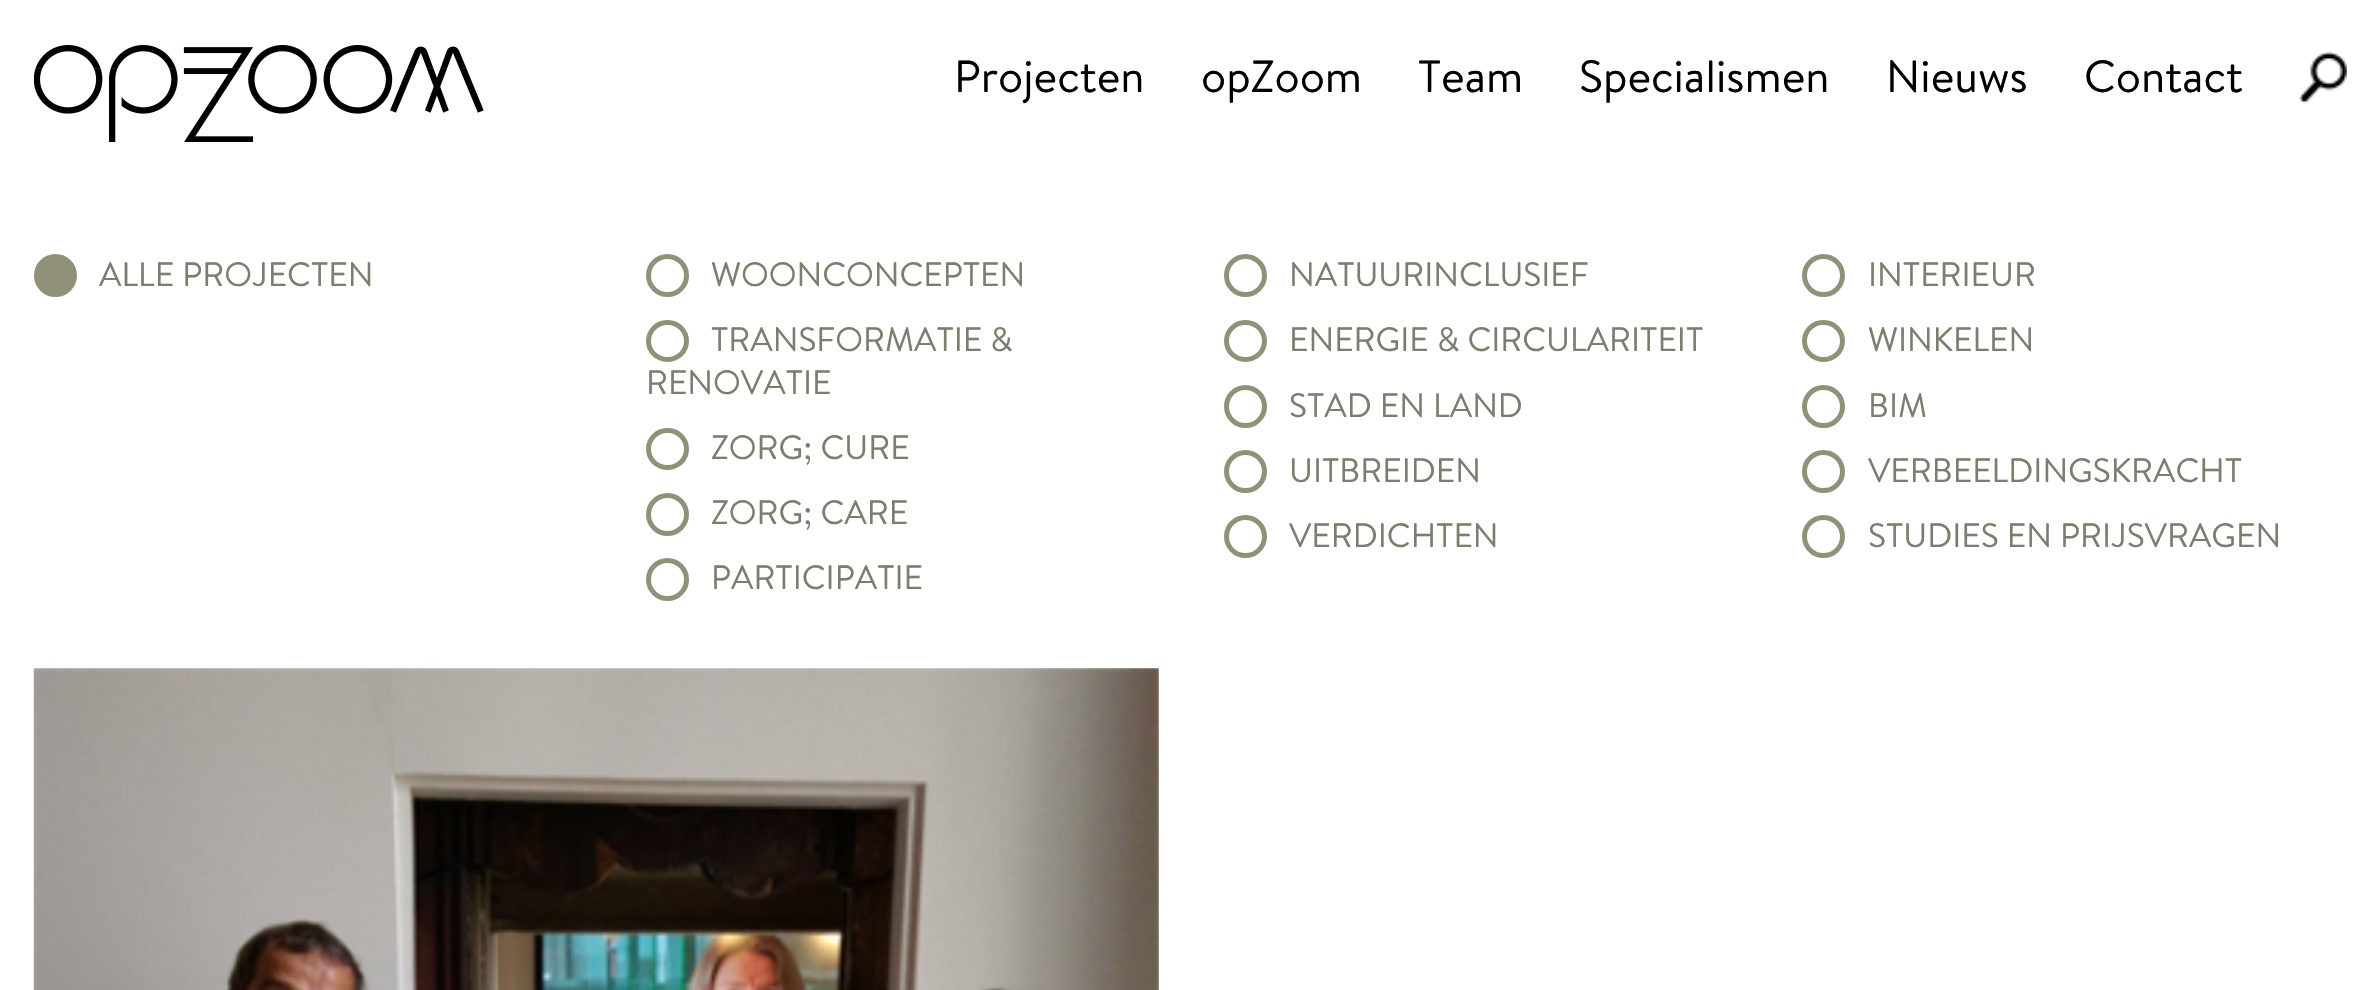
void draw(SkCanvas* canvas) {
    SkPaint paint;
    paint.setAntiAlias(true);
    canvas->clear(0xFFFFFFFF);
    canvas->drawImageRect(SkImages::DeferredFromEncodedData(SkData::MakeFromFileName("img1.png")), SkRect::MakeXYWH(34, 45, 450, 97), SkSamplingOptions());
    SkFont font1(fontMgr->matchFamilyStyle("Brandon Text", SkFontStyle::Normal()), 45);
    font1.setSubpixel(true);
    paint.setColor(0xFF000000);
    canvas->drawString("Projecten", 954, 92, font1, paint);
    canvas->drawString("opZoom", 1201, 92, font1, paint);
    canvas->drawString("Team", 1418, 92, font1, paint);
    canvas->drawString("Specialismen", 1579, 92, font1, paint);
    canvas->drawString("Nieuws", 1886, 92, font1, paint);
    canvas->drawString("Contact", 2084, 92, font1, paint);
    canvas->drawImageRect(SkImages::DeferredFromEncodedData(SkData::MakeFromFileName("img2.png")), SkRect::MakeXYWH(2299, 51, 48, 53), SkSamplingOptions());
    paint.setColor(0xFF919178);
    canvas->drawCircle(55.5f, 275.5f, 19, paint);
    paint.setStyle(SkPaint::kStroke_Style);
    paint.setStrokeWidth(5);
    canvas->drawCircle(55.5f, 275.5f, 19, paint);
    SkFont font2(fontMgr->matchFamilyStyle("Brandon Text", SkFontStyle::Normal()), 33.75f);
    font2.setSubpixel(true);
    paint.setStyle(SkPaint::kFill_Style);
    paint.setColor(0xFF7D7D6E);
    canvas->drawString("ALLE PROJECTEN", 99, 286, font2, paint);
    paint.setStyle(SkPaint::kStroke_Style);
    paint.setColor(0xFF919178);
    canvas->drawCircle(667.5f, 275.5f, 19, paint);
    paint.setStyle(SkPaint::kFill_Style);
    paint.setColor(0xFF7D7D6E);
    canvas->drawString("WOONCONCEPTEN", 711, 286, font2, paint);
    paint.setStyle(SkPaint::kStroke_Style);
    paint.setColor(0xFF919178);
    canvas->drawCircle(1245.5f, 275.5f, 19, paint);
    paint.setStyle(SkPaint::kFill_Style);
    paint.setColor(0xFF7D7D6E);
    canvas->drawString("NATUURINCLUSIEF", 1289, 286, font2, paint);
    paint.setStyle(SkPaint::kStroke_Style);
    paint.setColor(0xFF919178);
    canvas->drawCircle(1823.5f, 275.5f, 19, paint);
    paint.setStyle(SkPaint::kFill_Style);
    paint.setColor(0xFF7D7D6E);
    canvas->drawString("INTERIEUR", 1868, 286, font2, paint);
    paint.setStyle(SkPaint::kStroke_Style);
    paint.setColor(0xFF919178);
    canvas->drawRoundRect(SkRect::MakeXYWH(648.5f, 322.5f, 38, 37), 18.5f, 18.5f, paint);
    paint.setStyle(SkPaint::kFill_Style);
    paint.setColor(0xFF7D7D6E);
    canvas->drawString("TRANSFORMATIE &", 711, 351, font2, paint);
    canvas->drawString("RENOVATIE", 646, 394, font2, paint);
    paint.setStyle(SkPaint::kStroke_Style);
    paint.setColor(0xFF919178);
    canvas->drawRoundRect(SkRect::MakeXYWH(1226.5f, 322.5f, 38, 37), 18.5f, 18.5f, paint);
    paint.setStyle(SkPaint::kFill_Style);
    paint.setColor(0xFF7D7D6E);
    canvas->drawString("ENERGIE & CIRCULARITEIT", 1289, 351, font2, paint);
    paint.setStyle(SkPaint::kStroke_Style);
    paint.setColor(0xFF919178);
    canvas->drawRoundRect(SkRect::MakeXYWH(1804.5f, 322.5f, 38, 37), 18.5f, 18.5f, paint);
    paint.setStyle(SkPaint::kFill_Style);
    paint.setColor(0xFF7D7D6E);
    canvas->drawString("WINKELEN", 1868, 351, font2, paint);
    paint.setStyle(SkPaint::kStroke_Style);
    paint.setColor(0xFF919178);
    canvas->drawCircle(1245.5f, 406.5f, 19, paint);
    paint.setStyle(SkPaint::kFill_Style);
    paint.setColor(0xFF7D7D6E);
    canvas->drawString("STAD EN LAND", 1289, 417, font2, paint);
    paint.setStyle(SkPaint::kStroke_Style);
    paint.setColor(0xFF919178);
    canvas->drawCircle(1823.5f, 406.5f, 19, paint);
    paint.setStyle(SkPaint::kFill_Style);
    paint.setColor(0xFF7D7D6E);
    canvas->drawString("BIM", 1868, 417, font2, paint);
    paint.setStyle(SkPaint::kStroke_Style);
    paint.setColor(0xFF919178);
    canvas->drawRoundRect(SkRect::MakeXYWH(648.5f, 430.5f, 38, 37), 18.5f, 18.5f, paint);
    paint.setStyle(SkPaint::kFill_Style);
    paint.setColor(0xFF7D7D6E);
    canvas->drawString("ZORG; CURE", 711, 459, font2, paint);
    paint.setStyle(SkPaint::kStroke_Style);
    paint.setColor(0xFF919178);
    canvas->drawCircle(1245.5f, 471.5f, 19, paint);
    paint.setStyle(SkPaint::kFill_Style);
    paint.setColor(0xFF7D7D6E);
    canvas->drawString("UITBREIDEN", 1289, 482, font2, paint);
    paint.setStyle(SkPaint::kStroke_Style);
    paint.setColor(0xFF919178);
    canvas->drawCircle(1823.5f, 471.5f, 19, paint);
    paint.setStyle(SkPaint::kFill_Style);
    paint.setColor(0xFF7D7D6E);
    canvas->drawString("VERBEELDINGSKRACHT", 1868, 482, font2, paint);
    paint.setStyle(SkPaint::kStroke_Style);
    paint.setColor(0xFF919178);
    canvas->drawCircle(667.5f, 514.5f, 19, paint);
    paint.setStyle(SkPaint::kFill_Style);
    paint.setColor(0xFF7D7D6E);
    canvas->drawString("ZORG; CARE", 711, 524, font2, paint);
    paint.setStyle(SkPaint::kStroke_Style);
    paint.setColor(0xFF919178);
    canvas->drawCircle(1245.5f, 536.5f, 19, paint);
    paint.setStyle(SkPaint::kFill_Style);
    paint.setColor(0xFF7D7D6E);
    canvas->drawString("VERDICHTEN", 1289, 547, font2, paint);
    paint.setStyle(SkPaint::kStroke_Style);
    paint.setColor(0xFF919178);
    canvas->drawCircle(1823.5f, 536.5f, 19, paint);
    paint.setStyle(SkPaint::kFill_Style);
    paint.setColor(0xFF7D7D6E);
    canvas->drawString("STUDIES EN PRIJSVRAGEN", 1868, 547, font2, paint);
    paint.setStyle(SkPaint::kStroke_Style);
    paint.setColor(0xFF919178);
    canvas->drawCircle(667.5f, 579.5f, 19, paint);
    paint.setStyle(SkPaint::kFill_Style);
    paint.setColor(0xFF7D7D6E);
    canvas->drawString("PARTICIPATIE", 711, 589, font2, paint);
    canvas->drawImageRect(SkImages::DeferredFromEncodedData(SkData::MakeFromFileName("img3.png")), SkRect::MakeXYWH(33, 668, 1126, 322), SkSamplingOptions());
}
